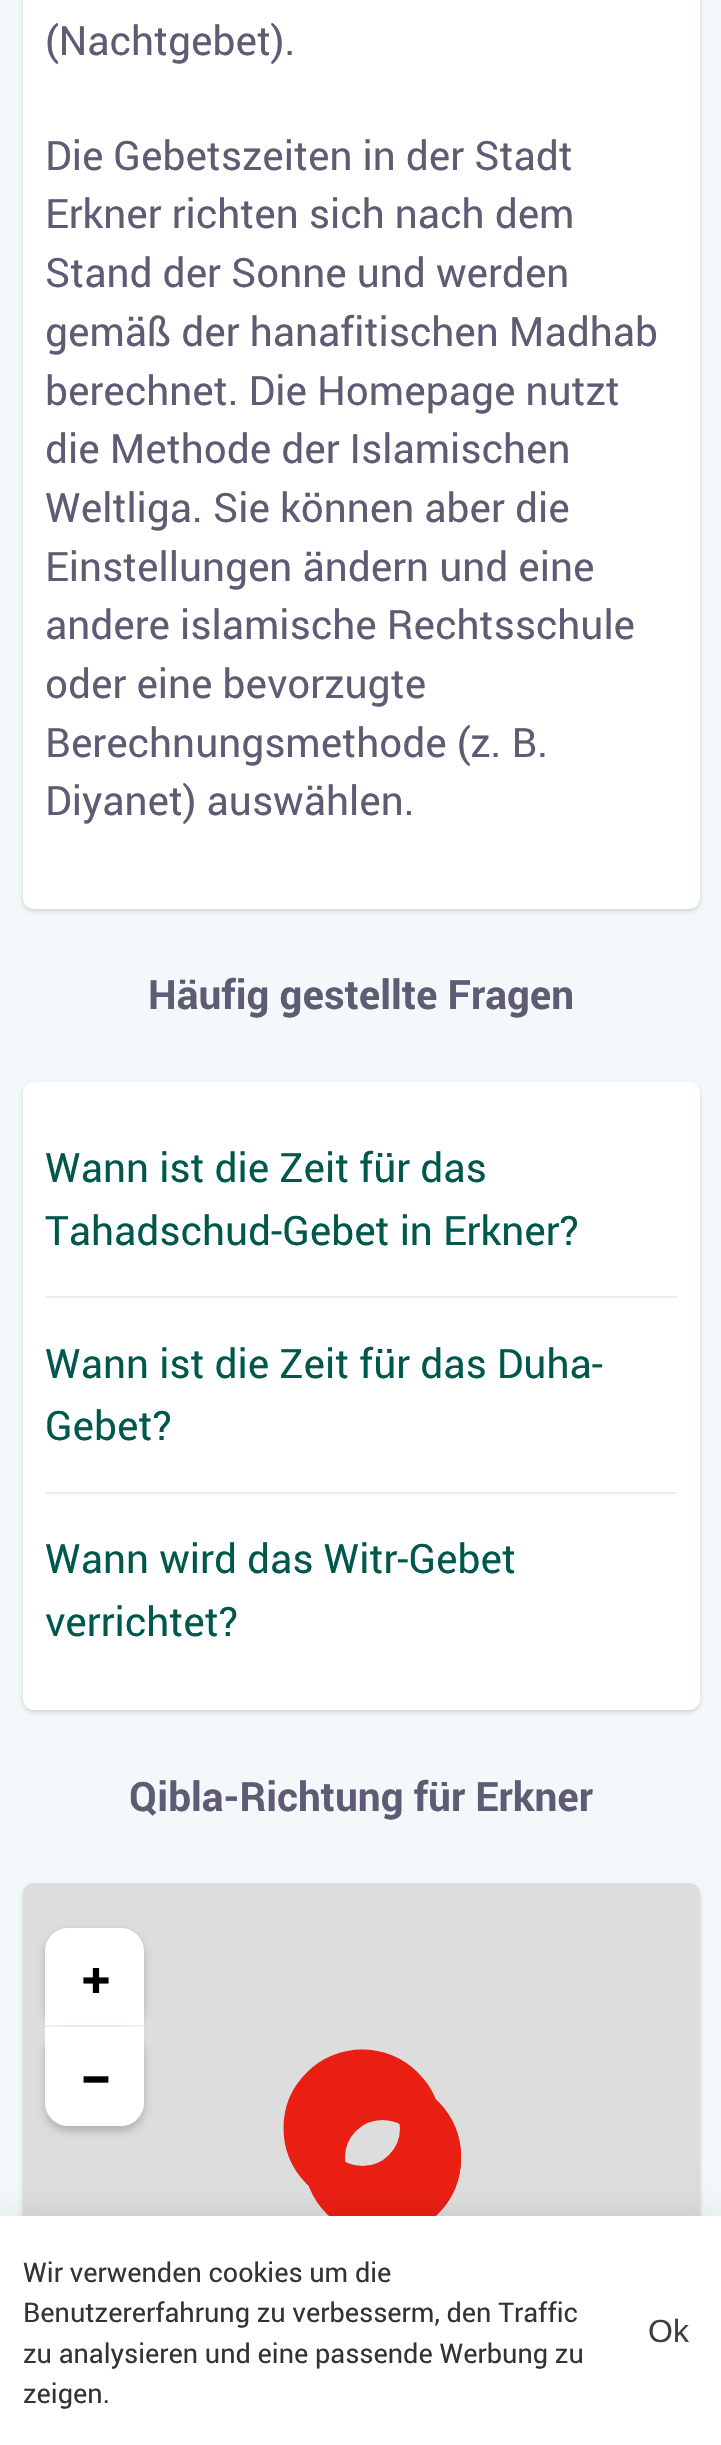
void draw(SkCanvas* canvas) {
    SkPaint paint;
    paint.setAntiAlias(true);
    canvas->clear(0xFFF3F9FA);
    paint.setColor(0x29000000);
    paint.setMaskFilter(SkMaskFilter::MakeBlur(kNormal_SkBlurStyle, 2));
    canvas->drawRoundRect(SkRect::MakeXYWH(23, -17, 677, 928), 11, 11, paint);
    paint.setMaskFilter(nullptr);
    paint.setColor(0xFFFFFFFF);
    canvas->drawRoundRect(SkRect::MakeXYWH(23, -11, 677, 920), 11, 11, paint);
    SkFont font1(fontMgr->matchFamilyStyle("Roboto", SkFontStyle::Normal()), 40.5f);
    font1.setSubpixel(true);
    paint.setColor(0xFF5E5C74);
    canvas->drawString("(Nachtgebet).", 45, 55, font1, paint);
    canvas->drawString("Die Gebetszeiten in der Stadt", 45, 170, font1, paint);
    canvas->drawString("Erkner richten sich nach dem", 45, 228, font1, paint);
    canvas->drawString("Stand der Sonne und werden", 45, 287, font1, paint);
    canvas->drawString("gemäß der hanafitischen Madhab", 45, 346, font1, paint);
    canvas->drawString("berechnet. Die Homepage nutzt", 45, 405, font1, paint);
    canvas->drawString("die Methode der Islamischen", 45, 463, font1, paint);
    canvas->drawString("Weltliga. Sie können aber die", 45, 522, font1, paint);
    canvas->drawString("Einstellungen ändern und eine", 45, 581, font1, paint);
    canvas->drawString("andere islamische Rechtsschule", 45, 639, font1, paint);
    canvas->drawString("oder eine bevorzugte", 45, 698, font1, paint);
    canvas->drawString("Berechnungsmethode (z. B.", 45, 757, font1, paint);
    canvas->drawString("Diyanet) auswählen.", 45, 815, font1, paint);
    SkFont font2(fontMgr->matchFamilyStyle("Roboto", SkFontStyle::Bold()), 40.5f);
    font2.setSubpixel(true);
    canvas->drawString("Häufig gestellte Fragen", 148, 1009, font2, paint);
    paint.setColor(0x29000000);
    paint.setMaskFilter(SkMaskFilter::MakeBlur(kNormal_SkBlurStyle, 2));
    canvas->drawRoundRect(SkRect::MakeXYWH(23, 1085, 677, 627), 11, 11, paint);
    paint.setMaskFilter(nullptr);
    paint.setColor(0xFFFFFFFF);
    canvas->drawRoundRect(SkRect::MakeXYWH(23, 1082, 677, 628), 11, 11, paint);
    paint.setColor(0xFFEDEDED);
    canvas->drawRect(SkRect::MakeXYWH(45, 1296, 632, 2), paint);
    paint.setColor(0xFF00584D);
    canvas->drawString("Wann ist die Zeit für das", 45, 1182, font1, paint);
    canvas->drawString("Tahadschud-Gebet in Erkner?", 45, 1245, font1, paint);
    paint.setColor(0xFFEDEDED);
    canvas->drawRect(SkRect::MakeXYWH(45, 1492, 632, 2), paint);
    paint.setColor(0xFF00584D);
    canvas->drawString("Wann ist die Zeit für das Duha-", 45, 1378, font1, paint);
    canvas->drawString("Gebet?", 45, 1440, font1, paint);
    canvas->drawString("Wann wird das Witr-Gebet", 45, 1573, font1, paint);
    canvas->drawString("verrichtet?", 45, 1636, font1, paint);
    paint.setColor(0xFF5E5C74);
    canvas->drawString("Qibla-Richtung für Erkner", 129, 1811, font2, paint);
    paint.setColor(0x29000000);
    paint.setMaskFilter(SkMaskFilter::MakeBlur(kNormal_SkBlurStyle, 2));
    canvas->drawRoundRect(SkRect::MakeXYWH(23, 1886, 677, 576), 11, 11, paint);
    paint.setMaskFilter(nullptr);
    paint.setColor(0xFFDDDDDD);
    canvas->drawRoundRect(SkRect::MakeXYWH(23, 1883, 677, 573), 11, 11, paint);
    paint.setColor(0xFFD9D9D9);
    canvas->drawPath(SkPathBuilder().moveTo(68, 1926).lineTo(121, 1926).cubicTo(134, 1926, 144, 1936, 144, 1949).lineTo(144, 1951).cubicTo(144, 1938, 134, 1928, 122, 1928).lineTo(68, 1928).cubicTo(55, 1928, 45, 1938, 45, 1951).cubicTo(45, 1937, 54, 1926, 68, 1926).close().detach(), paint);
    paint.setColor(0x33000000);
    paint.setMaskFilter(SkMaskFilter::MakeBlur(kNormal_SkBlurStyle, 4.5f));
    canvas->drawRoundRect(SkRect::MakeXYWH(45, 1933, 99, 99), 23, 23, paint);
    paint.setMaskFilter(nullptr);
    paint.setColor(0xFFFFFFFF);
    canvas->drawPath(SkPathBuilder().moveTo(68, 1928).lineTo(121, 1928).cubicTo(133.5f, 1928, 144, 1938.5f, 144, 1951).lineTo(144, 2027).lineTo(45, 2027).lineTo(45, 1951).cubicTo(45, 1938.5f, 55.5f, 1928, 68, 1928).close().detach(), paint);
    SkFont font3(fontMgr->matchFamilyStyle("Inter", SkFontStyle::Bold()), 50);
    font3.setSubpixel(true);
    paint.setColor(0xFF000000);
    canvas->drawString("+", 79, 1995, font3, paint);
    paint.setColor(0xFFF1F1F1);
    canvas->drawRect(SkRect::MakeXYWH(45, 2025, 99, 2), paint);
    paint.setColor(0x33000000);
    paint.setMaskFilter(SkMaskFilter::MakeBlur(kNormal_SkBlurStyle, 4.5f));
    canvas->drawRoundRect(SkRect::MakeXYWH(45, 2032, 99, 99), 23, 23, paint);
    paint.setMaskFilter(nullptr);
    paint.setColor(0xFFFFFFFF);
    canvas->drawPath(SkPathBuilder().moveTo(45, 2027).lineTo(144, 2027).lineTo(144, 2103).cubicTo(144, 2115.5f, 133.5f, 2126, 121, 2126).lineTo(68, 2126).cubicTo(55.5f, 2126, 45, 2115.5f, 45, 2103).close().detach(), paint);
    paint.setColor(0xFF000000);
    canvas->drawString("−", 79, 2094, font3, paint);
    paint.setStyle(SkPaint::kStroke_Style);
    paint.setStrokeWidth(40.5f);
    paint.setColor(0xFFEA1F14);
    canvas->drawPath(SkPathBuilder().moveTo(403.5f, 2087).cubicTo(426.5f, 2109.5f, 426.5f, 2146.5f, 403.5f, 2169.5f).lineTo(362, 2211).lineTo(321, 2169.5f).cubicTo(298, 2146.5f, 298, 2109.5f, 321, 2087).cubicTo(343.5f, 2064, 381, 2064, 403.5f, 2087).close().detach(), paint);
    paint.setStrokeWidth(41);
    canvas->drawCircle(362.5f, 2128.5f, 58, paint);
    paint.setStrokeWidth(40.5f);
    canvas->drawPath(SkPathBuilder().moveTo(424, 2116).cubicTo(446.5f, 2139, 446.5f, 2176, 424, 2199).lineTo(382.5f, 2240).lineTo(341, 2199).cubicTo(318.5f, 2176, 318.5f, 2139, 341, 2116).cubicTo(364, 2093.5f, 401, 2093.5f, 424, 2116).close().detach(), paint);
    paint.setStrokeWidth(41);
    canvas->drawRoundRect(SkRect::MakeXYWH(324.5f, 2099.5f, 116, 117), 58, 58, paint);
    paint.setStyle(SkPaint::kFill_Style);
    paint.setColor(0x1F000000);
    paint.setMaskFilter(SkMaskFilter::MakeBlur(kNormal_SkBlurStyle, 18));
    canvas->drawRect(SkRect::MakeXYWH(-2, 2219, 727, 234), paint);
    paint.setMaskFilter(nullptr);
    paint.setColor(0xFFFFFFFF);
    canvas->drawRect(SkRect::MakeXYWH(0, 2216, 721, 229), paint);
    SkFont font4(fontMgr->matchFamilyStyle("Roboto", SkFontStyle::Normal()), 27);
    font4.setSubpixel(true);
    paint.setColor(0xFF333333);
    canvas->drawString("Wir verwenden cookies um die", 23, 2282, font4, paint);
    canvas->drawString("Benutzererfahrung zu verbesserm, den Traffic", 23, 2322, font4, paint);
    canvas->drawString("zu analysieren und eine passende Werbung zu", 23, 2363, font4, paint);
    canvas->drawString("zeigen.", 23, 2403, font4, paint);
    SkFont font5(fontMgr->matchFamilyStyle("Liberation Sans", SkFontStyle::Normal()), 32);
    font5.setSubpixel(true);
    paint.setColor(0xFF404040);
    canvas->drawString("Ok", 648, 2342, font5, paint);
}
